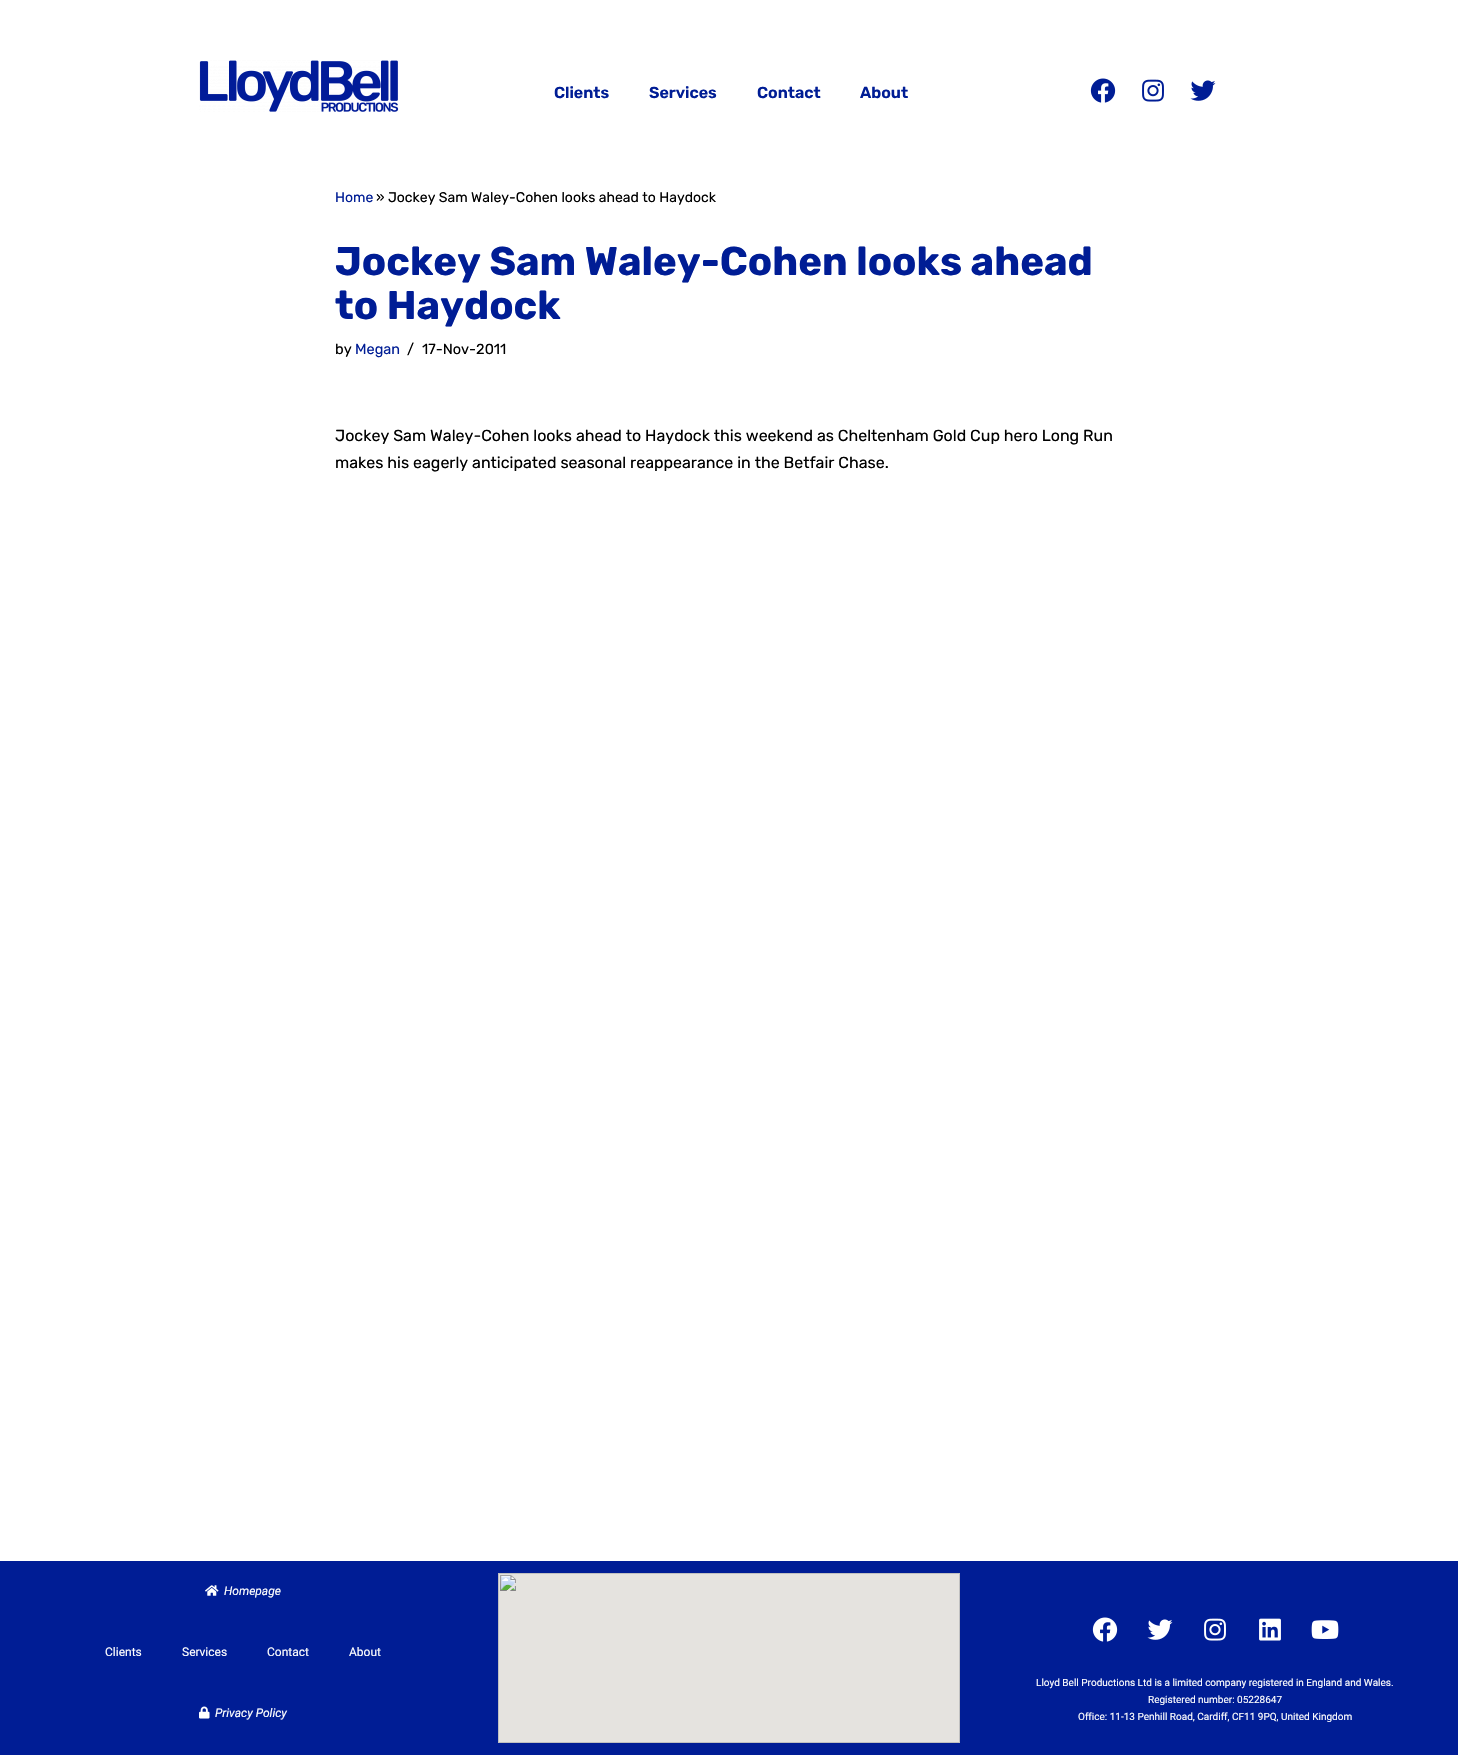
void draw(SkCanvas* canvas) {
    SkPaint paint;
    paint.setAntiAlias(true);
    canvas->clear(0xFFFFFFFF);
    canvas->drawImageRect(SkImages::DeferredFromEncodedData(SkData::MakeFromFileName("img1.png")), SkRect::MakeXYWH(199, 60, 200, 52), SkSamplingOptions());
    SkFont font1(fontMgr->matchFamilyStyle("Rubik", SkFontStyle(600, SkFontStyle::kNormal_Width, SkFontStyle::kUpright_Slant)), 16);
    font1.setSubpixel(true);
    paint.setColor(0xFF001D95);
    canvas->drawString("Clients", 554, 98, font1, paint);
    canvas->drawString("Services", 649, 98, font1, paint);
    canvas->drawString("Contact", 757, 98, font1, paint);
    canvas->drawString("About", 860, 98, font1, paint);
    canvas->drawImageRect(SkImages::DeferredFromEncodedData(SkData::MakeFromFileName("img2.png")), SkRect::MakeXYWH(1090, 78, 26, 25), SkSamplingOptions());
    canvas->drawImageRect(SkImages::DeferredFromEncodedData(SkData::MakeFromFileName("img3.png")), SkRect::MakeXYWH(1142, 79, 22, 23), SkSamplingOptions());
    canvas->drawImageRect(SkImages::DeferredFromEncodedData(SkData::MakeFromFileName("img4.png")), SkRect::MakeXYWH(1190, 80, 26, 21), SkSamplingOptions());
    SkFont font2(fontMgr->matchFamilyStyle("Rubik", SkFontStyle::Normal()), 14);
    font2.setSubpixel(true);
    canvas->drawString("Home", 335, 202, font2, paint);
    paint.setColor(0xFF000000);
    canvas->drawString("» Jockey Sam Waley-Cohen looks ahead to Haydock", 376, 202, font2, paint);
    SkFont font3(fontMgr->matchFamilyStyle("Rubik", SkFontStyle::Bold()), 40);
    font3.setSubpixel(true);
    paint.setColor(0xFF001D95);
    canvas->drawString("Jockey Sam Waley-Cohen looks ahead", 335, 275, font3, paint);
    canvas->drawString("to Haydock", 335, 319, font3, paint);
    SkFont font4(fontMgr->matchFamilyStyle("Rubik", SkFontStyle::Normal()), 14.5f);
    font4.setSubpixel(true);
    paint.setColor(0xFF000000);
    canvas->drawString("by", 335, 354, font4, paint);
    paint.setColor(0xFF001D95);
    canvas->drawString("Megan", 355, 354, font4, paint);
    paint.setColor(0xFF000000);
    canvas->drawString("/", 407, 354, font4, paint);
    canvas->drawString("17-Nov-2011", 422, 354, font4, paint);
    SkFont font5(fontMgr->matchFamilyStyle("Rubik", SkFontStyle::Normal()), 16);
    font5.setSubpixel(true);
    canvas->drawString("Jockey Sam Waley-Cohen looks ahead to Haydock this weekend as Cheltenham Gold Cup hero Long Run", 335, 441, font5, paint);
    canvas->drawString("makes his eagerly anticipated seasonal reappearance in the Betfair Chase.", 335, 468, font5, paint);
    paint.setColor(0xFF001D95);
    canvas->drawRect(SkRect::MakeXYWH(0, 1561, 1458, 194), paint);
    canvas->drawImageRect(SkImages::DeferredFromEncodedData(SkData::MakeFromFileName("img5.png")), SkRect::MakeXYWH(205, 1585, 14, 11), SkSamplingOptions());
    SkFont font6(fontMgr->matchFamilyStyle("Roboto", SkFontStyle::Italic()), 12);
    font6.setSubpixel(true);
    paint.setColor(0xFFFFFFFF);
    canvas->drawString("Homepage", 224, 1595, font6, paint);
    SkFont font7(fontMgr->matchFamilyStyle("Roboto", SkFontStyle::Normal()), 12);
    font7.setSubpixel(true);
    canvas->drawString("Clients", 105, 1656, font7, paint);
    canvas->drawString("Services", 182, 1656, font7, paint);
    canvas->drawString("Contact", 267, 1656, font7, paint);
    canvas->drawString("About", 349, 1656, font7, paint);
    canvas->drawImageRect(SkImages::DeferredFromEncodedData(SkData::MakeFromFileName("img6.png")), SkRect::MakeXYWH(199, 1706, 11, 13), SkSamplingOptions());
    canvas->drawString("Privacy Policy", 215, 1717, font6, paint);
    canvas->drawImageRect(SkImages::DeferredFromEncodedData(SkData::MakeFromFileName("img7.png")), SkRect::MakeXYWH(498, 1573, 462, 170), SkSamplingOptions());
    canvas->drawImageRect(SkImages::DeferredFromEncodedData(SkData::MakeFromFileName("img8.png")), SkRect::MakeXYWH(1092, 1617, 26, 25), SkSamplingOptions());
    canvas->drawImageRect(SkImages::DeferredFromEncodedData(SkData::MakeFromFileName("img9.png")), SkRect::MakeXYWH(1147, 1619, 26, 21), SkSamplingOptions());
    canvas->drawImageRect(SkImages::DeferredFromEncodedData(SkData::MakeFromFileName("img10.png")), SkRect::MakeXYWH(1204, 1618, 22, 23), SkSamplingOptions());
    canvas->drawImageRect(SkImages::DeferredFromEncodedData(SkData::MakeFromFileName("img11.png")), SkRect::MakeXYWH(1259, 1618, 22, 23), SkSamplingOptions());
    canvas->drawImageRect(SkImages::DeferredFromEncodedData(SkData::MakeFromFileName("img12.png")), SkRect::MakeXYWH(1311, 1620, 28, 19), SkSamplingOptions());
    SkFont font8(fontMgr->matchFamilyStyle("Roboto", SkFontStyle::Normal()), 10);
    font8.setSubpixel(true);
    canvas->drawString("Lloyd Bell Productions Ltd is a limited company registered in England and Wales.", 1036, 1686, font8, paint);
    canvas->drawString("Registered number: 05228647", 1148, 1703, font8, paint);
    canvas->drawString("Office: 11-13 Penhill Road, Cardiff, CF11 9PQ, United Kingdom", 1078, 1720, font8, paint);
}
